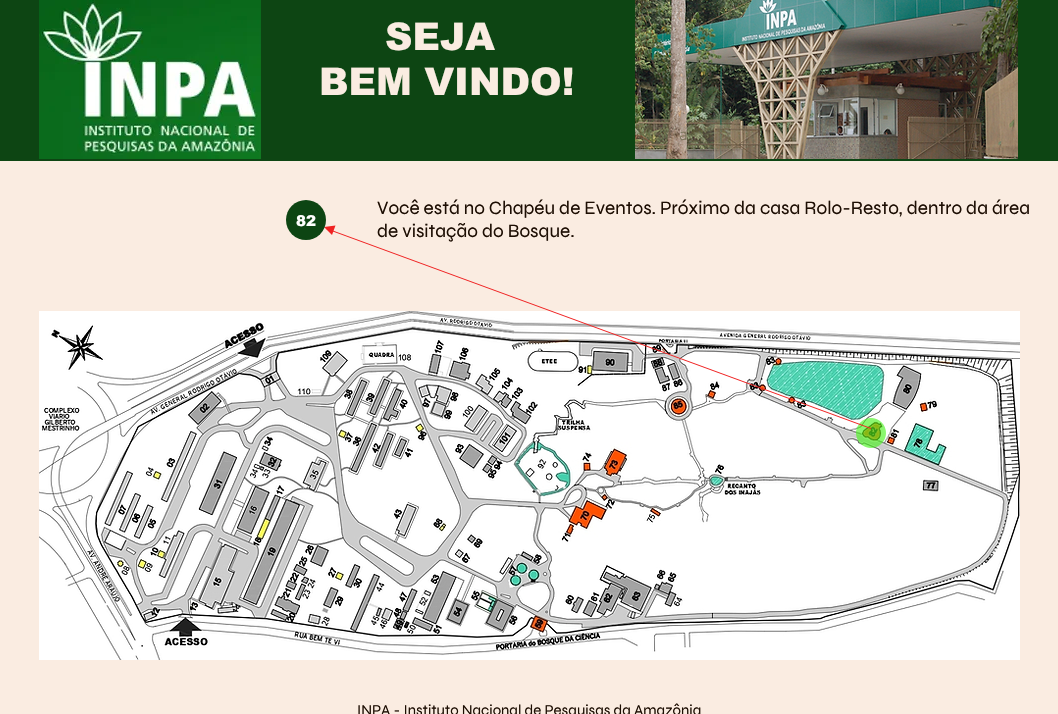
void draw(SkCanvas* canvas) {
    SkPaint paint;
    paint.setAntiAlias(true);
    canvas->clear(0xFFFAECE1);
    paint.setColor(0xFF0D4513);
    canvas->drawRect(SkRect::MakeXYWH(0, 0, 1058, 161), paint);
    canvas->drawImageRect(SkImages::DeferredFromEncodedData(SkData::MakeFromFileName("img1.png")), SkRect::MakeXYWH(39, 0, 222, 159), SkSamplingOptions());
    SkFont font1(fontMgr->matchFamilyStyle("arial", SkFontStyle(900, SkFontStyle::kNormal_Width, SkFontStyle::kUpright_Slant)), 38);
    font1.setSubpixel(true);
    paint.setColor(0xFFFAECE1);
    canvas->drawString("SEJA", 385, 50, font1, paint);
    canvas->drawString("BEM VINDO!", 319, 95, font1, paint);
    canvas->drawImageRect(SkImages::DeferredFromEncodedData(SkData::MakeFromFileName("img2.png")), SkRect::MakeXYWH(635, 0, 383, 159), SkSamplingOptions());
    SkFont font2(fontMgr->matchFamilyStyle("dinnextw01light", SkFontStyle(300, SkFontStyle::kNormal_Width, SkFontStyle::kUpright_Slant)), 17);
    font2.setSubpixel(true);
    paint.setColor(0xFF797359);
    canvas->drawString("a", 679, 140, font2, paint);
    canvas->drawImageRect(SkImages::DeferredFromEncodedData(SkData::MakeFromFileName("img3.png")), SkRect::MakeXYWH(39, 311, 981, 349), SkSamplingOptions());
    canvas->drawImageRect(SkImages::DeferredFromEncodedData(SkData::MakeFromFileName("img4.png")), SkRect::MakeXYWH(856, 418, 30, 30), SkSamplingOptions());
    paint.setColor(0xFFF02222);
    canvas->drawPath(SkPathBuilder().moveTo(326, 229).lineTo(326, 228).lineTo(871, 428).lineTo(871, 429).close().detach(), paint);
    canvas->drawPath(SkPathBuilder().moveTo(335.5f, 225.5f).lineTo(332, 235).lineTo(324, 227).close().detach(), paint);
    paint.setColor(0xFF0D4513);
    canvas->drawCircle(306, 220, 20, paint);
    SkFont font3(fontMgr->matchFamilyStyle("arial", SkFontStyle(900, SkFontStyle::kNormal_Width, SkFontStyle::kUpright_Slant)), 15);
    font3.setSubpixel(true);
    paint.setColor(0xFFFFFFFF);
    canvas->drawString("82", 296, 226, font3, paint);
    SkFont font4(fontMgr->matchFamilyStyle("Syne", SkFontStyle::Normal()), 19);
    font4.setSubpixel(true);
    paint.setColor(0xFF1D0E03);
    canvas->drawString("Você está no Chapéu de Eventos. Próximo da casa Rolo-Resto, dentro da área", 377, 214, font4, paint);
    canvas->drawString("de visitação do Bosque.", 377, 237, font4, paint);
    SkFont font5(fontMgr->matchFamilyStyle("Syne", SkFontStyle::Normal()), 15);
    font5.setSubpixel(true);
    canvas->drawString("INPA - Instituto Nacional de Pesquisas da Amazônia", 357, 715, font5, paint);
}
